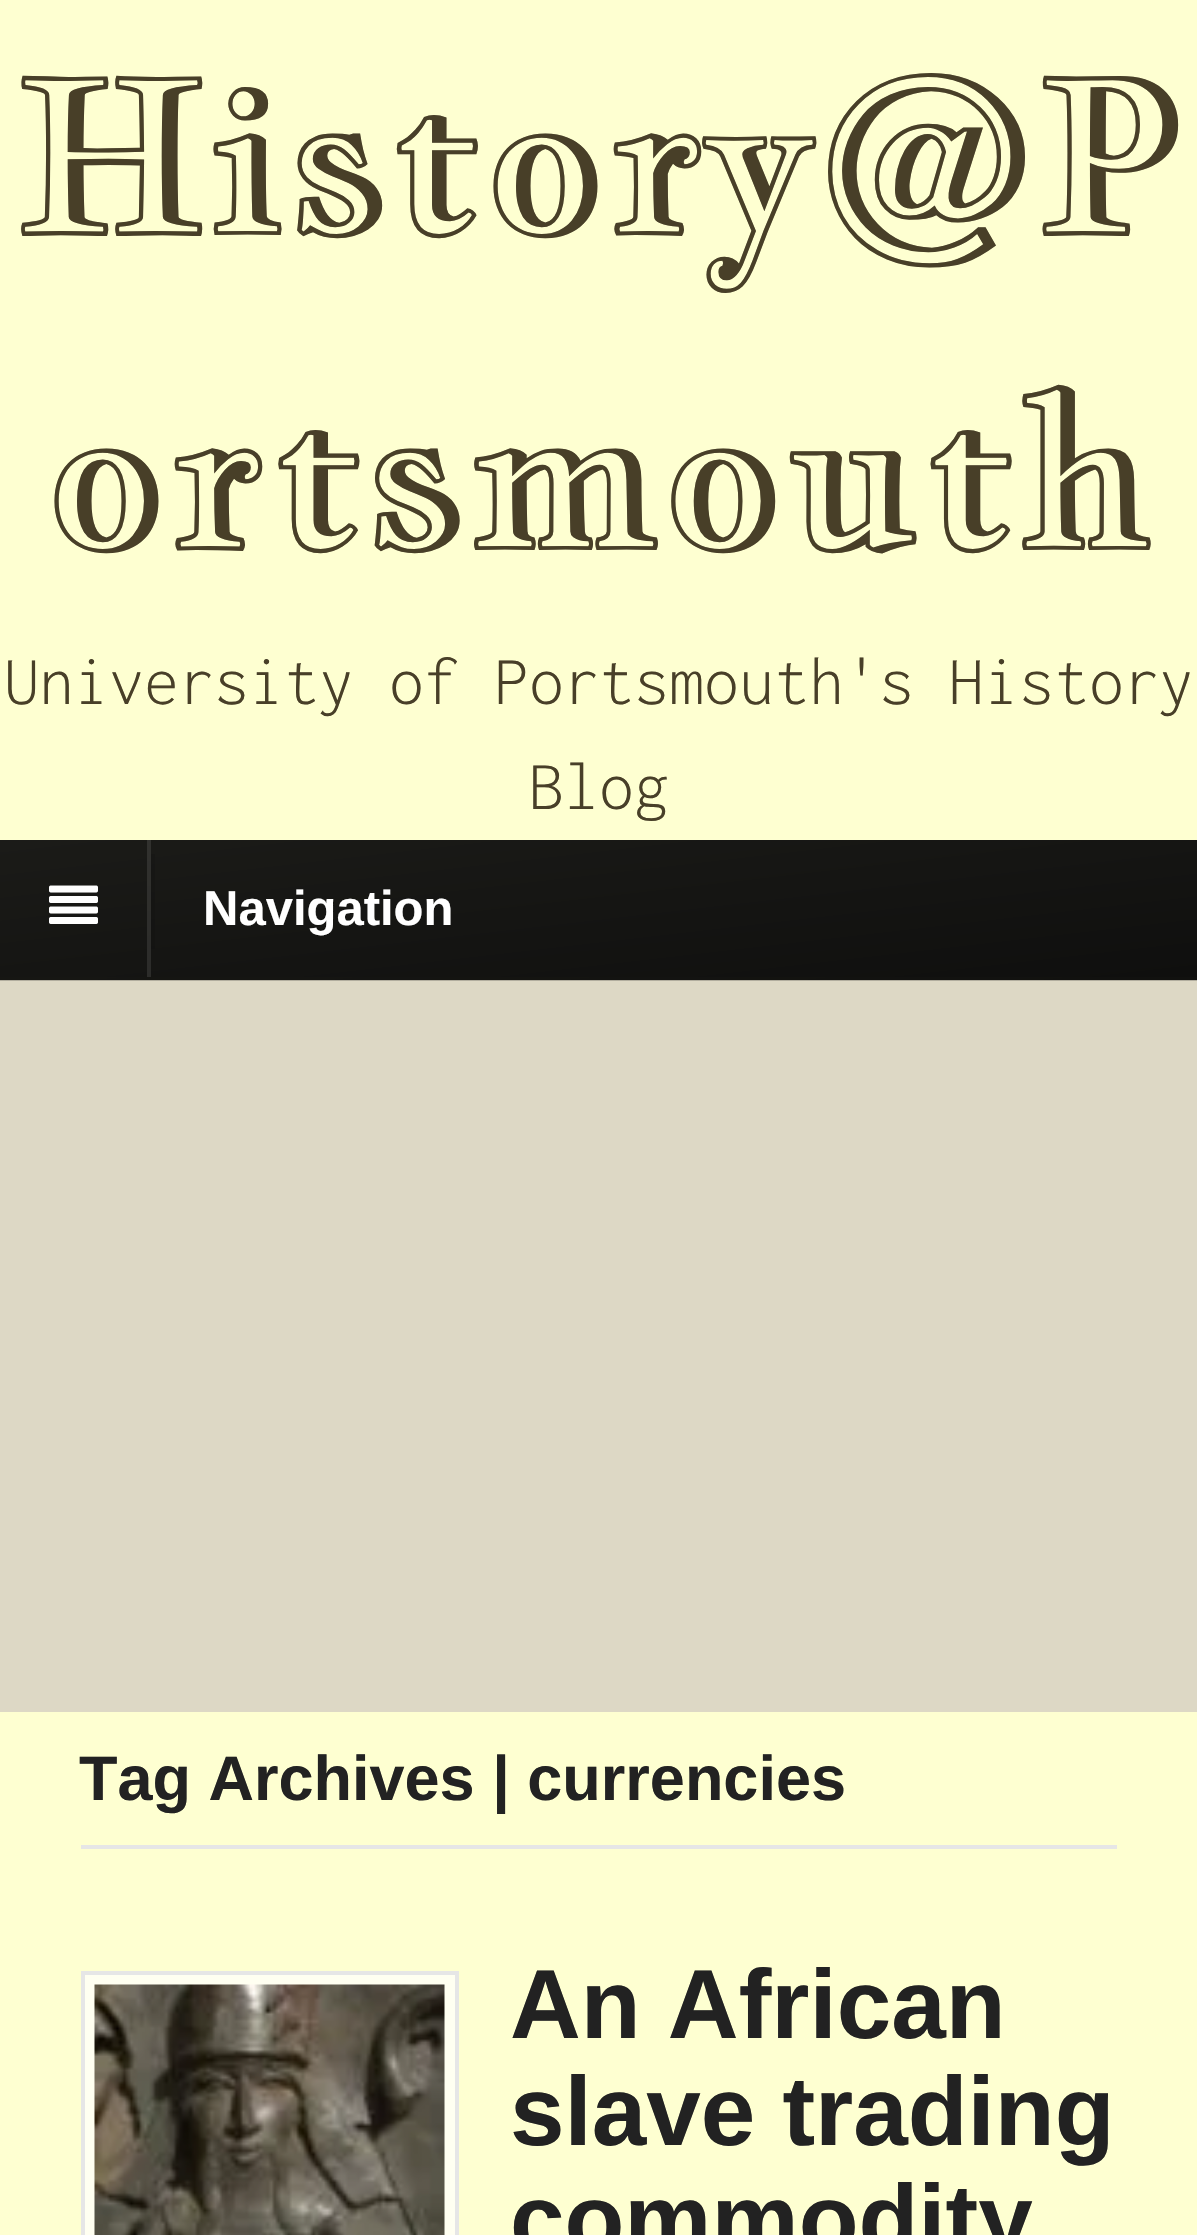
void draw(SkCanvas* canvas) {
    SkPaint paint;
    paint.setAntiAlias(true);
    canvas->clear(0xFFDDD8C5);
    paint.setColor(0xFFB1AD9E);
    canvas->drawRect(SkRect::MakeXYWH(0, 980, 1197, 1), paint);
    paint.setColor(0xFFFEFFD1);
    canvas->drawRect(SkRect::MakeXYWH(0, 0, 1197, 840), paint);
    SkFont font1(fontMgr->matchFamilyStyle("Jacques Francois Shadow", SkFontStyle::Normal()), 210);
    font1.setSubpixel(true);
    paint.setColor(0xFF483F28);
    canvas->drawString("History@P", 15, 231, font1, paint);
    canvas->drawString("ortsmouth", 44, 546, font1, paint);
    SkFont font2(fontMgr->matchFamilyStyle("Inconsolata", SkFontStyle(300, SkFontStyle::kNormal_Width, SkFontStyle::kUpright_Slant)), 70);
    font2.setSubpixel(true);
    canvas->drawString("University of Portsmouth's History", 4, 704, font2, paint);
    canvas->drawString("Blog", 529, 809, font2, paint);
    {
        const SkColor colors[] = {0xFF1B1B18, 0xFF0F0F0E};
        const float stops[] = {0, 1};
        const SkPoint ends[] = {{583, 774}, {614, 1043}};
        paint.setShader(SkGradientShader::MakeLinear(ends, colors, stops, 2, SkTileMode::kClamp));
        paint.setAlpha(255);
    }
    canvas->drawRect(SkRect::MakeXYWH(0, 840, 1197, 137), paint);
    {
        const SkColor colors[] = {0xFF181816, 0xFF0E0E0D};
        const float stops[] = {0, 1};
        const SkPoint ends[] = {{583, 774}, {614, 1043}};
        paint.setShader(SkGradientShader::MakeLinear(ends, colors, stops, 2, SkTileMode::kClamp));
        paint.setAlpha(255);
    }
    canvas->drawRect(SkRect::MakeXYWH(151, 854, 4, 95), paint);
    {
        const SkColor colors[] = {0xFF32322F, 0xFF272726};
        const float stops[] = {0, 1};
        const SkPoint ends[] = {{583, 774}, {614, 1043}};
        paint.setShader(SkGradientShader::MakeLinear(ends, colors, stops, 2, SkTileMode::kClamp));
        paint.setAlpha(255);
    }
    canvas->drawRect(SkRect::MakeXYWH(147, 840, 4, 137), paint);
    {
        const SkColor colors[] = {0xFF161613, 0xFF0C0C0B};
        const float stops[] = {0, 1};
        const SkPoint ends[] = {{583, 910}, {614, 1179}};
        paint.setShader(SkGradientShader::MakeLinear(ends, colors, stops, 2, SkTileMode::kClamp));
        paint.setAlpha(255);
    }
    canvas->drawRect(SkRect::MakeXYWH(0, 977, 1197, 3), paint);
    canvas->drawImageRect(SkImages::DeferredFromEncodedData(SkData::MakeFromFileName("img1.png")), SkRect::MakeXYWH(49, 885, 49, 39), SkSamplingOptions());
    SkFont font3(fontMgr->matchFamilyStyle("Liberation Sans", SkFontStyle::Bold()), 49);
    font3.setSubpixel(true);
    paint.setShader(nullptr);
    paint.setColor(0xFFFFFFFF);
    canvas->drawString("Navigation", 203, 925, font3, paint);
    paint.setColor(0xFFFEFFD1);
    canvas->drawRect(SkRect::MakeXYWH(0, 1712, 1197, 523), paint);
    paint.setColor(0xFFE6E6E6);
    canvas->drawRect(SkRect::MakeXYWH(81, 1845, 1036, 4), paint);
    SkFont font4(fontMgr->matchFamilyStyle("Liberation Sans", SkFontStyle::Bold()), 63);
    font4.setSubpixel(true);
    paint.setColor(0xFF222222);
    canvas->drawString("Tag Archives | currencies", 79, 1800, font4, paint);
    paint.setColor(0xFFFFFFF1);
    canvas->drawRect(SkRect::MakeXYWH(83, 1973, 374, 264), paint);
    paint.setStyle(SkPaint::kStroke_Style);
    paint.setStrokeWidth(4);
    paint.setColor(0xFFE6E6E6);
    canvas->drawRect(SkRect::MakeXYWH(83, 1973, 374, 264), paint);
    canvas->drawImageRect(SkImages::DeferredFromEncodedData(SkData::MakeFromFileName("img2.png")), SkRect::MakeXYWH(94, 1984, 351, 251), SkSamplingOptions());
    SkFont font5(fontMgr->matchFamilyStyle("Liberation Sans", SkFontStyle::Bold()), 98);
    font5.setSubpixel(true);
    paint.setStyle(SkPaint::kFill_Style);
    paint.setColor(0xFF222222);
    canvas->drawString("An African", 510, 2038, font5, paint);
    canvas->drawString("slave trading", 510, 2145, font5, paint);
    canvas->drawString("commodity", 510, 2253, font5, paint);
}
